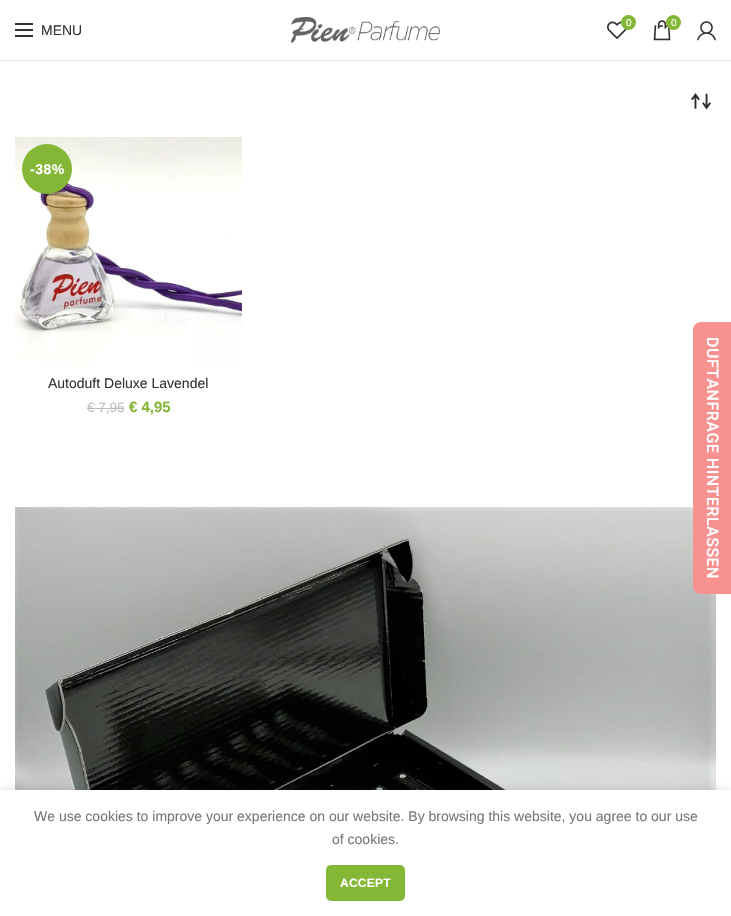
void draw(SkCanvas* canvas) {
    SkPaint paint;
    paint.setAntiAlias(true);
    auto spacedText = [&](const char* s, float x, float y, const SkFont& font, const SkPaint& ink, float letter, float word) {
        std::vector<SkGlyphID> glyphs(font.countText(s, strlen(s), SkTextEncoding::kUTF8));
        std::vector<float> xs(glyphs.size());
        font.textToGlyphs(s, strlen(s), SkTextEncoding::kUTF8, glyphs);
        font.getXPos(glyphs, xs, x);
        float extra = 0;
        for (size_t i = 0; i < glyphs.size(); i++) {
            xs[i] += extra;
            extra += letter + word * (glyphs[i] == font.unicharToGlyph(' '));
        }
        canvas->drawTextBlob(SkTextBlob::MakeFromPosHGlyphs(glyphs, xs, y, font), 0, 0, ink);
    };
    canvas->clear(0xFFFFFFFF);
    paint.setColor(0xFFE8E8E8);
    canvas->drawRect(SkRect::MakeXYWH(0, 60, 731, 1), paint);
    canvas->drawImageRect(SkImages::DeferredFromEncodedData(SkData::MakeFromFileName("img1.png")), SkRect::MakeXYWH(291, 17, 149, 26), SkSamplingOptions());
    canvas->drawImageRect(SkImages::DeferredFromEncodedData(SkData::MakeFromFileName("img2.png")), SkRect::MakeXYWH(607, 21, 20, 18), SkSamplingOptions());
    paint.setColor(0xFF83B735);
    canvas->drawCircle(628.5f, 22.5f, 7.5f, paint);
    SkFont font1(fontMgr->matchFamilyStyle("Liberation Sans", SkFontStyle::Normal()), 10);
    font1.setSubpixel(true);
    paint.setColor(0xFFFFFFFF);
    canvas->drawString("0", 626, 26, font1, paint);
    canvas->drawImageRect(SkImages::DeferredFromEncodedData(SkData::MakeFromFileName("img3.png")), SkRect::MakeXYWH(653, 20, 18, 21), SkSamplingOptions());
    paint.setColor(0xFF83B735);
    canvas->drawCircle(673.5f, 22.5f, 7.5f, paint);
    paint.setColor(0xFFFFFFFF);
    canvas->drawString("0", 671, 26, font1, paint);
    canvas->drawImageRect(SkImages::DeferredFromEncodedData(SkData::MakeFromFileName("img4.png")), SkRect::MakeXYWH(697, 21, 19, 20), SkSamplingOptions());
    paint.setColor(0xFF333333);
    canvas->drawRect(SkRect::MakeXYWH(15, 29, 18, 2), paint);
    canvas->drawRect(SkRect::MakeXYWH(15, 23, 18, 2), paint);
    canvas->drawRect(SkRect::MakeXYWH(15, 35, 18, 2), paint);
    SkFont font2(fontMgr->matchFamilyStyle("Liberation Sans", SkFontStyle::Normal()), 14);
    font2.setSubpixel(true);
    canvas->drawString("MENU", 41, 35, font2, paint);
    canvas->drawImageRect(SkImages::DeferredFromEncodedData(SkData::MakeFromFileName("img5.png")), SkRect::MakeXYWH(691, 93, 20, 17), SkSamplingOptions());
    canvas->drawImageRect(SkImages::DeferredFromEncodedData(SkData::MakeFromFileName("img6.png")), SkRect::MakeXYWH(15, 137, 227, 227), SkSamplingOptions());
    paint.setColor(0xFF83B735);
    canvas->drawCircle(47, 169, 25, paint);
    SkFont font3(fontMgr->matchFamilyStyle("Liberation Sans", SkFontStyle::Bold()), 14);
    font3.setSubpixel(true);
    paint.setColor(0xFFFFFFFF);
    spacedText("-38%", 30, 174, font3, paint, 0.5f, 0);
    paint.setColor(0xFF333333);
    canvas->drawString("Autoduft Deluxe Lavendel", 48, 388, font2, paint);
    SkFont font4(fontMgr->matchFamilyStyle("Liberation Sans", SkFontStyle::Normal()), 13.5f);
    font4.setSubpixel(true);
    paint.setColor(0xFFBDBDBD);
    canvas->drawString("€ 7,95", 87, 412, font4, paint);
    canvas->drawRect(SkRect::MakeXYWH(87, 408, 37, 1), paint);
    SkFont font5(fontMgr->matchFamilyStyle("Liberation Sans", SkFontStyle::Bold()), 15);
    font5.setSubpixel(true);
    paint.setColor(0xFF83B735);
    canvas->drawString("€ 4,95", 129, 412, font5, paint);
    canvas->drawImageRect(SkImages::DeferredFromEncodedData(SkData::MakeFromFileName("img7.png")), SkRect::MakeXYWH(15, 507, 701, 283), SkSamplingOptions());
    paint.setColor(0xFFF89291);
    canvas->drawPath(SkPathBuilder().moveTo(731, 322).lineTo(731, 594).lineTo(701, 594).cubicTo(696, 594, 693, 590, 693, 586).lineTo(693, 330).cubicTo(693, 326, 696, 322, 701, 322).close().detach(), paint);
    SkFont font6(fontMgr->matchFamilyStyle("Roboto", SkFontStyle(500, SkFontStyle::kNormal_Width, SkFontStyle::kUpright_Slant)), 16);
    font6.setSubpixel(true);
    paint.setColor(0xFFFFFFFF);
    canvas->save();
    canvas->rotate(90, 707, 337);
    spacedText("DUFTANFRAGE HINTERLASSEN", 707, 337, font6, paint, 0.5f, 0);
    canvas->restore();
    paint.setColor(0x24000000);
    paint.setMaskFilter(SkMaskFilter::MakeBlur(kNormal_SkBlurStyle, 4.5f));
    canvas->drawRect(SkRect::MakeXYWH(0, 790, 731, 126), paint);
    paint.setMaskFilter(nullptr);
    paint.setColor(0xFFFFFFFF);
    canvas->drawRect(SkRect::MakeXYWH(0, 790, 731, 126), paint);
    paint.setColor(0xFF777777);
    canvas->drawString("We use cookies to improve your experience on our website. By browsing this website, you agree to our use", 34, 821, font2, paint);
    canvas->drawString("of cookies.", 332, 844, font2, paint);
    paint.setColor(0xFF83B735);
    canvas->drawRoundRect(SkRect::MakeXYWH(326, 865, 79, 36), 5, 5, paint);
    SkFont font7(fontMgr->matchFamilyStyle("Liberation Sans", SkFontStyle::Bold()), 12);
    font7.setSubpixel(true);
    paint.setColor(0xFFFFFFFF);
    spacedText("ACCEPT", 340, 887, font7, paint, 0.25f, 0);
}
